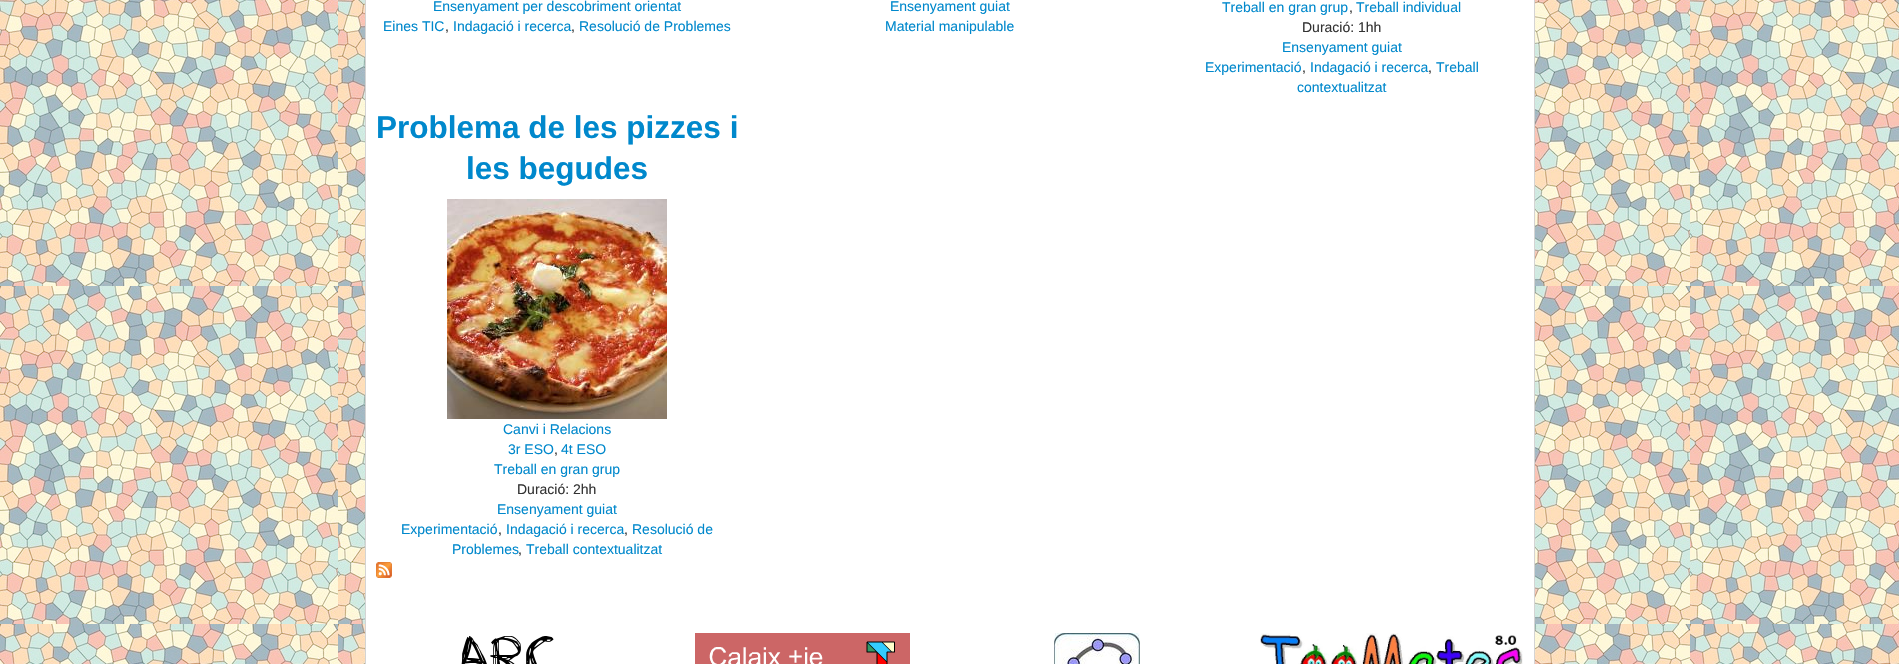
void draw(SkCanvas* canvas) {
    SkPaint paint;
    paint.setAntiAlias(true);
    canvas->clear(0xFFFFFFFF);
    canvas->drawImageRect(SkImages::DeferredFromEncodedData(SkData::MakeFromFileName("img1.png")), SkRect::MakeXYWH(0, 0, 1899, 664), SkSamplingOptions());
    paint.setColor(0xFFFFFFFF);
    canvas->drawRect(SkRect::MakeXYWH(365.5f, -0.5f, 1169, 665), paint);
    paint.setStyle(SkPaint::kStroke_Style);
    paint.setStrokeWidth(1);
    paint.setColor(0xFFD4D4D4);
    canvas->drawRect(SkRect::MakeXYWH(365.5f, -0.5f, 1169, 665), paint);
    SkFont font1(fontMgr->matchFamilyStyle("Liberation Sans", SkFontStyle::Normal()), 14);
    font1.setSubpixel(true);
    paint.setStyle(SkPaint::kFill_Style);
    paint.setColor(0xFF0088CC);
    canvas->drawString("Ensenyament per descobriment orientat", 433, 11, font1, paint);
    canvas->drawString("Eines TIC", 383, 31, font1, paint);
    paint.setColor(0xFF333333);
    canvas->drawString(",", 445, 31, font1, paint);
    paint.setColor(0xFF0088CC);
    canvas->drawString("Indagació i recerca", 453, 31, font1, paint);
    paint.setColor(0xFF333333);
    canvas->drawString(",", 571, 31, font1, paint);
    paint.setColor(0xFF0088CC);
    canvas->drawString("Resolució de Problemes", 579, 31, font1, paint);
    canvas->drawString("Ensenyament guiat", 890, 11, font1, paint);
    canvas->drawString("Material manipulable", 885, 31, font1, paint);
    canvas->drawString("Treball en gran grup", 1222, 12, font1, paint);
    paint.setColor(0xFF333333);
    canvas->drawString(",", 1349, 12, font1, paint);
    paint.setColor(0xFF0088CC);
    canvas->drawString("Treball individual", 1356, 12, font1, paint);
    paint.setColor(0xFF333333);
    canvas->drawString("Duració: 1hh", 1302, 32, font1, paint);
    paint.setColor(0xFF0088CC);
    canvas->drawString("Ensenyament guiat", 1282, 52, font1, paint);
    canvas->drawString("Experimentació", 1205, 72, font1, paint);
    paint.setColor(0xFF333333);
    canvas->drawString(",", 1302, 72, font1, paint);
    paint.setColor(0xFF0088CC);
    canvas->drawString("Indagació i recerca", 1310, 72, font1, paint);
    paint.setColor(0xFF333333);
    canvas->drawString(",", 1428, 72, font1, paint);
    paint.setColor(0xFF0088CC);
    canvas->drawString("Treball", 1436, 72, font1, paint);
    canvas->drawString("contextualitzat", 1297, 92, font1, paint);
    SkFont font2(fontMgr->matchFamilyStyle("Liberation Sans", SkFontStyle::Bold()), 31.5f);
    font2.setSubpixel(true);
    canvas->drawString("Problema de les pizzes i", 376, 138, font2, paint);
    canvas->drawString("les begudes", 466, 179, font2, paint);
    canvas->drawImageRect(SkImages::DeferredFromEncodedData(SkData::MakeFromFileName("img2.png")), SkRect::MakeXYWH(447, 199, 220, 220), SkSamplingOptions());
    canvas->drawString("Canvi i Relacions", 503, 434, font1, paint);
    canvas->drawString("3r ESO", 508, 454, font1, paint);
    paint.setColor(0xFF333333);
    canvas->drawString(",", 554, 454, font1, paint);
    paint.setColor(0xFF0088CC);
    canvas->drawString("4t ESO", 561, 454, font1, paint);
    canvas->drawString("Treball en gran grup", 494, 474, font1, paint);
    paint.setColor(0xFF333333);
    canvas->drawString("Duració: 2hh", 517, 494, font1, paint);
    paint.setColor(0xFF0088CC);
    canvas->drawString("Ensenyament guiat", 497, 514, font1, paint);
    canvas->drawString("Experimentació", 401, 534, font1, paint);
    paint.setColor(0xFF333333);
    canvas->drawString(",", 498, 534, font1, paint);
    paint.setColor(0xFF0088CC);
    canvas->drawString("Indagació i recerca", 506, 534, font1, paint);
    paint.setColor(0xFF333333);
    canvas->drawString(",", 624, 534, font1, paint);
    paint.setColor(0xFF0088CC);
    canvas->drawString("Resolució de", 632, 534, font1, paint);
    canvas->drawString("Problemes", 452, 554, font1, paint);
    paint.setColor(0xFF333333);
    canvas->drawString(",", 518, 554, font1, paint);
    paint.setColor(0xFF0088CC);
    canvas->drawString("Treball contextualitzat", 526, 554, font1, paint);
    canvas->drawImageRect(SkImages::DeferredFromEncodedData(SkData::MakeFromFileName("img3.png")), SkRect::MakeXYWH(376, 562, 16, 16), SkSamplingOptions());
    canvas->drawImageRect(SkImages::DeferredFromEncodedData(SkData::MakeFromFileName("img4.png")), SkRect::MakeXYWH(461, 636, 93, 28), SkSamplingOptions());
    canvas->drawImageRect(SkImages::DeferredFromEncodedData(SkData::MakeFromFileName("img5.png")), SkRect::MakeXYWH(695, 633, 215, 31), SkSamplingOptions());
    canvas->drawImageRect(SkImages::DeferredFromEncodedData(SkData::MakeFromFileName("img6.png")), SkRect::MakeXYWH(1054, 633, 86, 31), SkSamplingOptions());
    canvas->drawImageRect(SkImages::DeferredFromEncodedData(SkData::MakeFromFileName("img7.png")), SkRect::MakeXYWH(1260, 633, 263, 31), SkSamplingOptions());
}
